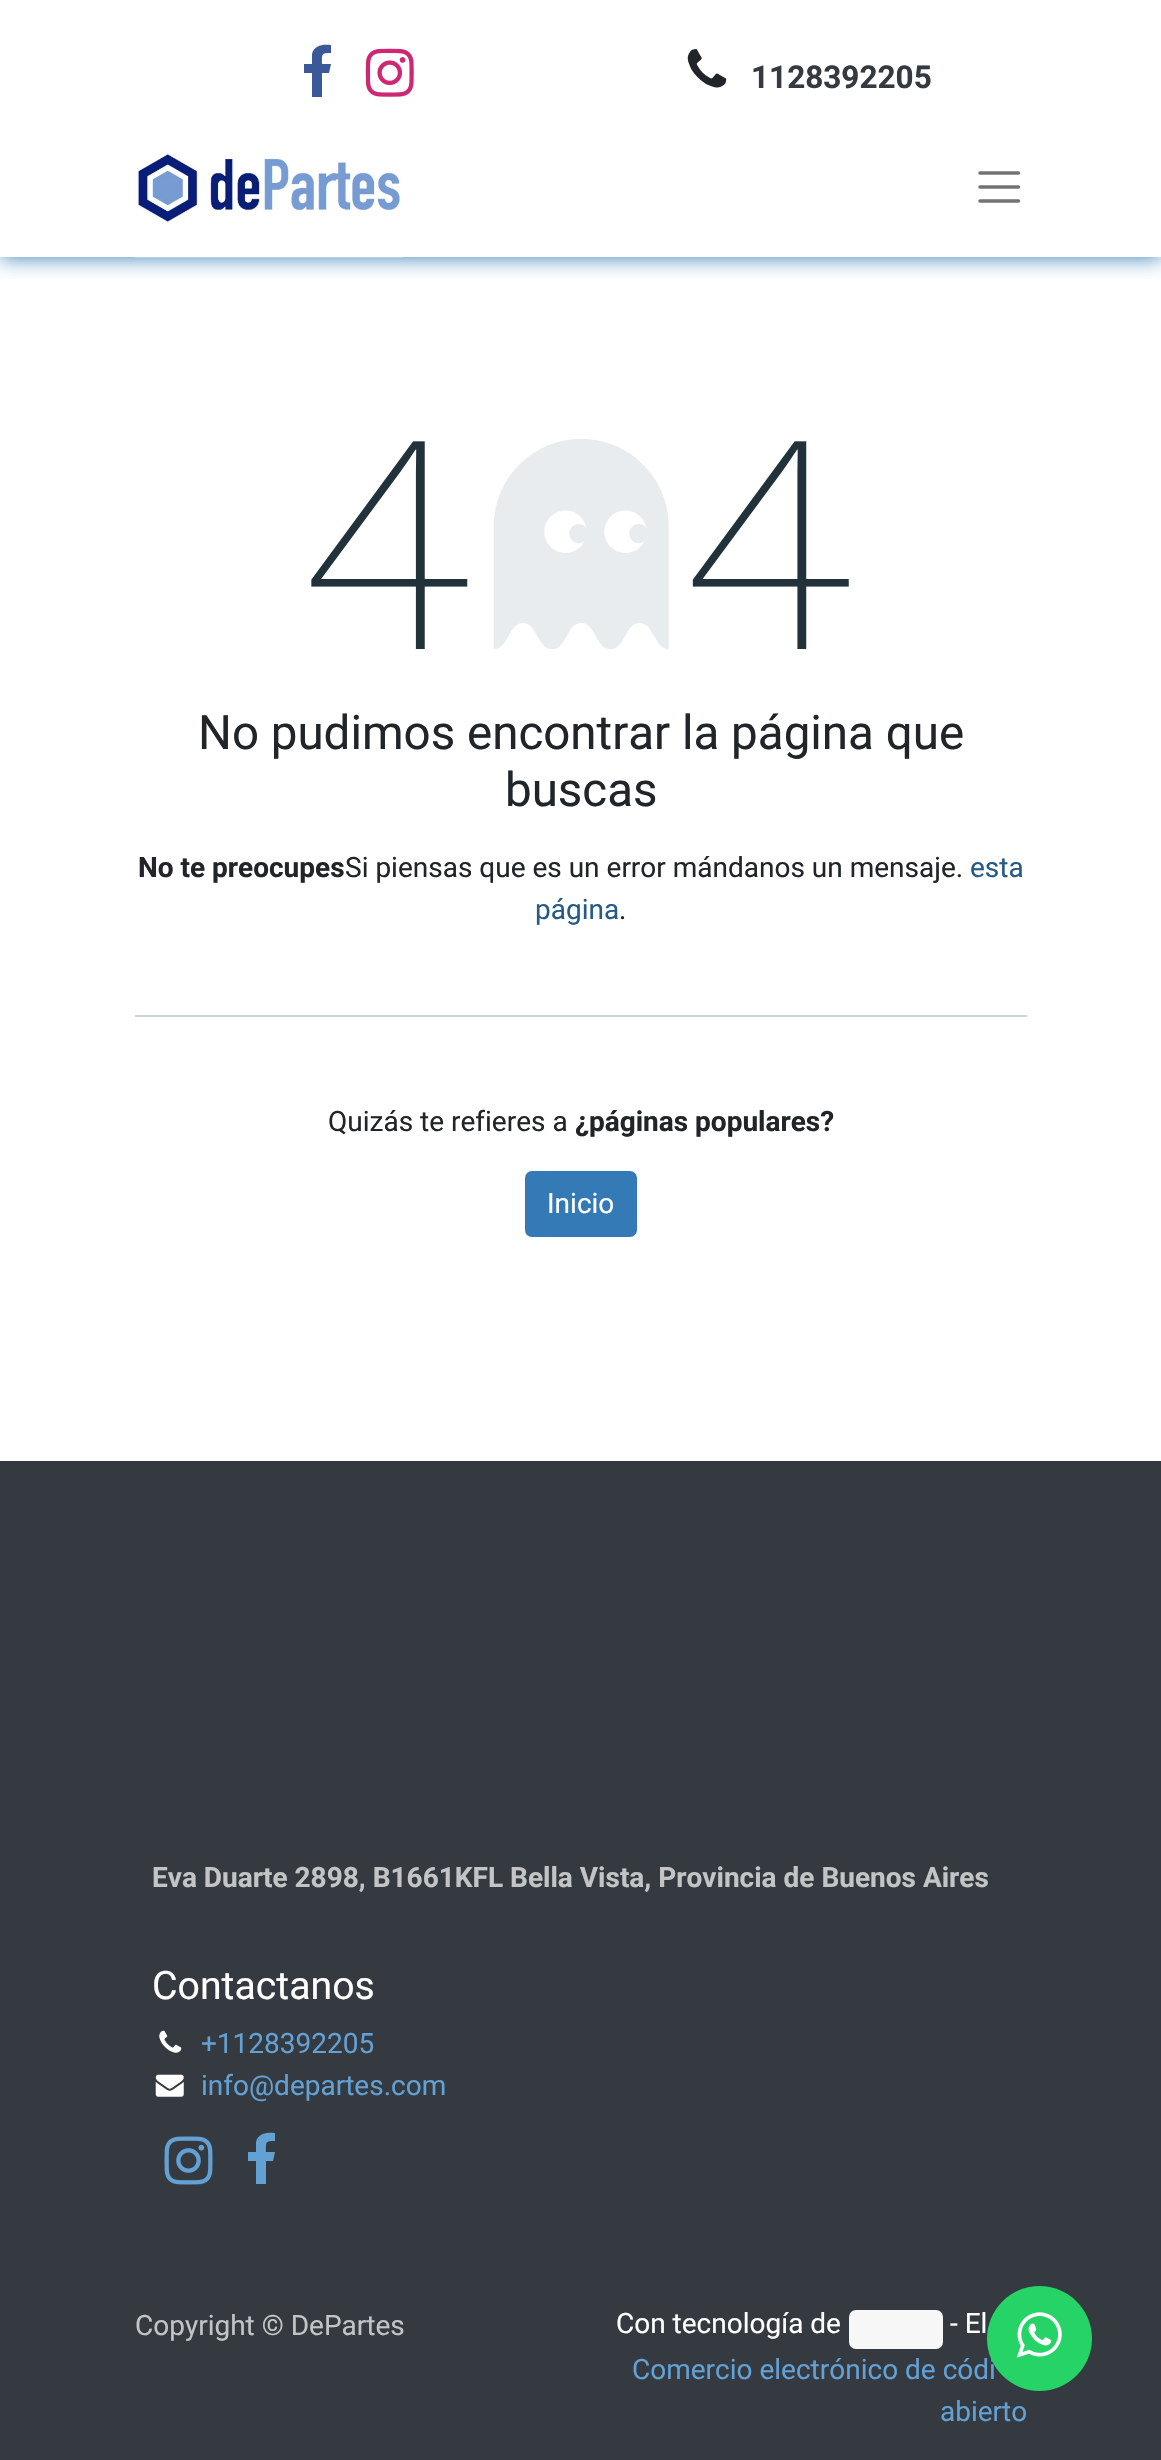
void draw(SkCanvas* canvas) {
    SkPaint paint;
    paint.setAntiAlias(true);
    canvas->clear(0xFFFFFFFF);
    canvas->save();
    canvas->clipRect(SkRect::MakeXYWH(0, 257, 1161, 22));
    paint.setColor(0xFF337AB7);
    paint.setMaskFilter(SkMaskFilter::MakeBlur(kNormal_SkBlurStyle, 10.5f));
    canvas->drawRect(SkRect::MakeXYWH(0, 0, 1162, 257), paint);
    paint.setMaskFilter(nullptr);
    canvas->restore();
    paint.setColor(0xFF3B5999);
    canvas->drawPath(SkPathBuilder().moveTo(331, 45).lineTo(331, 53).cubicTo(321, 53, 322, 54, 322, 64).lineTo(331, 64).lineTo(329, 73).lineTo(322, 73).lineTo(322, 97).lineTo(312, 97).lineTo(312, 73).lineTo(304, 73).lineTo(304, 64).lineTo(312, 64).lineTo(312, 54).cubicTo(314, 45, 323, 44, 331, 45).close().detach(), paint);
    canvas->drawImageRect(SkImages::DeferredFromEncodedData(SkData::MakeFromFileName("img1.png")), SkRect::MakeXYWH(365, 48, 49, 49), SkSamplingOptions());
    canvas->drawImageRect(SkImages::DeferredFromEncodedData(SkData::MakeFromFileName("img2.png")), SkRect::MakeXYWH(687, 49, 40, 39), SkSamplingOptions());
    SkFont font1(fontMgr->matchFamilyStyle("Roboto", SkFontStyle::Bold()), 31.5f);
    font1.setSubpixel(true);
    paint.setColor(0xFF343A40);
    canvas->drawString("1128392205", 751, 88, font1, paint);
    canvas->drawImageRect(SkImages::DeferredFromEncodedData(SkData::MakeFromFileName("img3.png")), SkRect::MakeXYWH(134, 152, 269, 106), SkSamplingOptions());
    paint.setStyle(SkPaint::kStroke_Style);
    paint.setStrokeWidth(3.5f);
    paint.setStrokeCap(SkPaint::kRound_Cap);
    paint.setColor(0xFF737373);
    canvas->drawPath(SkPathBuilder().moveTo(980, 173).lineTo(1018.5f, 173).moveTo(980, 187).lineTo(1018.5f, 187).moveTo(980, 201).lineTo(1018.5f, 201).detach(), paint);
    canvas->drawImageRect(SkImages::DeferredFromEncodedData(SkData::MakeFromFileName("img4.png")), SkRect::MakeXYWH(311, 439, 538, 210), SkSamplingOptions());
    SkFont font2(fontMgr->matchFamilyStyle("Roboto", SkFontStyle::Normal()), 47.5f);
    font2.setSubpixel(true);
    paint.setStyle(SkPaint::kFill_Style);
    paint.setColor(0xFF212529);
    canvas->drawString("No pudimos encontrar la página que", 198, 749, font2, paint);
    canvas->drawString("buscas", 505, 806, font2, paint);
    SkFont font3(fontMgr->matchFamilyStyle("Roboto", SkFontStyle::Bold()), 28);
    font3.setSubpixel(true);
    canvas->drawString("No te preocupes", 138, 877, font3, paint);
    SkFont font4(fontMgr->matchFamilyStyle("Roboto", SkFontStyle::Normal()), 28);
    font4.setSubpixel(true);
    canvas->drawString("Si piensas que es un error mándanos un mensaje.", 345, 877, font4, paint);
    paint.setColor(0xFF265A87);
    canvas->drawString("esta", 970, 877, font4, paint);
    canvas->drawString("página", 535, 919, font4, paint);
    paint.setColor(0xFF212529);
    canvas->drawString(".", 619, 919, font4, paint);
    paint.setColor(0xFFCED4DA);
    canvas->drawRect(SkRect::MakeXYWH(135, 1015, 892, 2), paint);
    paint.setColor(0xFF212529);
    canvas->drawString("Quizás te refieres a", 328, 1131, font4, paint);
    canvas->drawString("¿páginas populares?", 575, 1131, font3, paint);
    paint.setColor(0xFF337AB7);
    canvas->drawRoundRect(SkRect::MakeXYWH(526, 1172, 110, 64), 6, 6, paint);
    paint.setStyle(SkPaint::kStroke_Style);
    paint.setStrokeWidth(2);
    paint.setStrokeCap(SkPaint::kButt_Cap);
    canvas->drawRoundRect(SkRect::MakeXYWH(526, 1172, 110, 64), 6, 6, paint);
    paint.setStyle(SkPaint::kFill_Style);
    paint.setColor(0xFFFFFFFF);
    canvas->drawString("Inicio", 547, 1213, font4, paint);
    paint.setColor(0xFF343A40);
    canvas->drawRect(SkRect::MakeXYWH(0, 1461, 1161, 999), paint);
    paint.setColor(0xFFC2C4C6);
    canvas->drawString("Eva Duarte 2898, B1661KFL Bella Vista, Provincia de Buenos Aires", 152, 1887, font3, paint);
    SkFont font5(fontMgr->matchFamilyStyle("Roboto", SkFontStyle::Normal()), 39.25f);
    font5.setSubpixel(true);
    paint.setColor(0xFFFFFFFF);
    canvas->drawString("Contactanos", 152, 1999, font5, paint);
    canvas->drawImageRect(SkImages::DeferredFromEncodedData(SkData::MakeFromFileName("img5.png")), SkRect::MakeXYWH(159, 2030, 23, 23), SkSamplingOptions());
    paint.setColor(0xFF63A0D4);
    canvas->drawString("+1128392205", 201, 2053, font4, paint);
    canvas->drawImageRect(SkImages::DeferredFromEncodedData(SkData::MakeFromFileName("img6.png")), SkRect::MakeXYWH(155, 2074, 29, 23), SkSamplingOptions());
    canvas->drawString("info@departes.com", 201, 2095, font4, paint);
    canvas->drawImageRect(SkImages::DeferredFromEncodedData(SkData::MakeFromFileName("img7.png")), SkRect::MakeXYWH(164, 2136, 49, 49), SkSamplingOptions());
    canvas->drawPath(SkPathBuilder().moveTo(275, 2133).lineTo(275, 2141).cubicTo(265, 2141, 266, 2142, 266, 2152).lineTo(275, 2152).lineTo(273, 2161).lineTo(266, 2161).lineTo(266, 2184).lineTo(256, 2184).lineTo(256, 2161).lineTo(248, 2161).lineTo(248, 2152).lineTo(256, 2152).lineTo(256, 2142).cubicTo(258, 2133, 267, 2132, 275, 2133).close().detach(), paint);
    paint.setColor(0xFFC2C4C6);
    canvas->drawString("Copyright © DePartes", 135, 2335, font4, paint);
    paint.setColor(0xFFFFFFFF);
    canvas->drawString("Con tecnología de", 616, 2333, font4, paint);
    paint.setColor(0xFFF7F7F7);
    canvas->drawRoundRect(SkRect::MakeXYWH(849, 2310, 94, 39), 7, 7, paint);
    paint.setColor(0xFFFFFFFF);
    canvas->drawString("- El", 950, 2333, font4, paint);
    paint.setColor(0xFF63A0D4);
    canvas->drawString("Comercio electrónico de códi", 632, 2379, font4, paint);
    canvas->drawString("abierto", 940, 2421, font4, paint);
    paint.setColor(0xFF25D366);
    canvas->drawCircle(1039.5f, 2338.5f, 52.5f, paint);
    canvas->drawImageRect(SkImages::DeferredFromEncodedData(SkData::MakeFromFileName("img8.png")), SkRect::MakeXYWH(1016, 2312, 46, 46), SkSamplingOptions());
}
